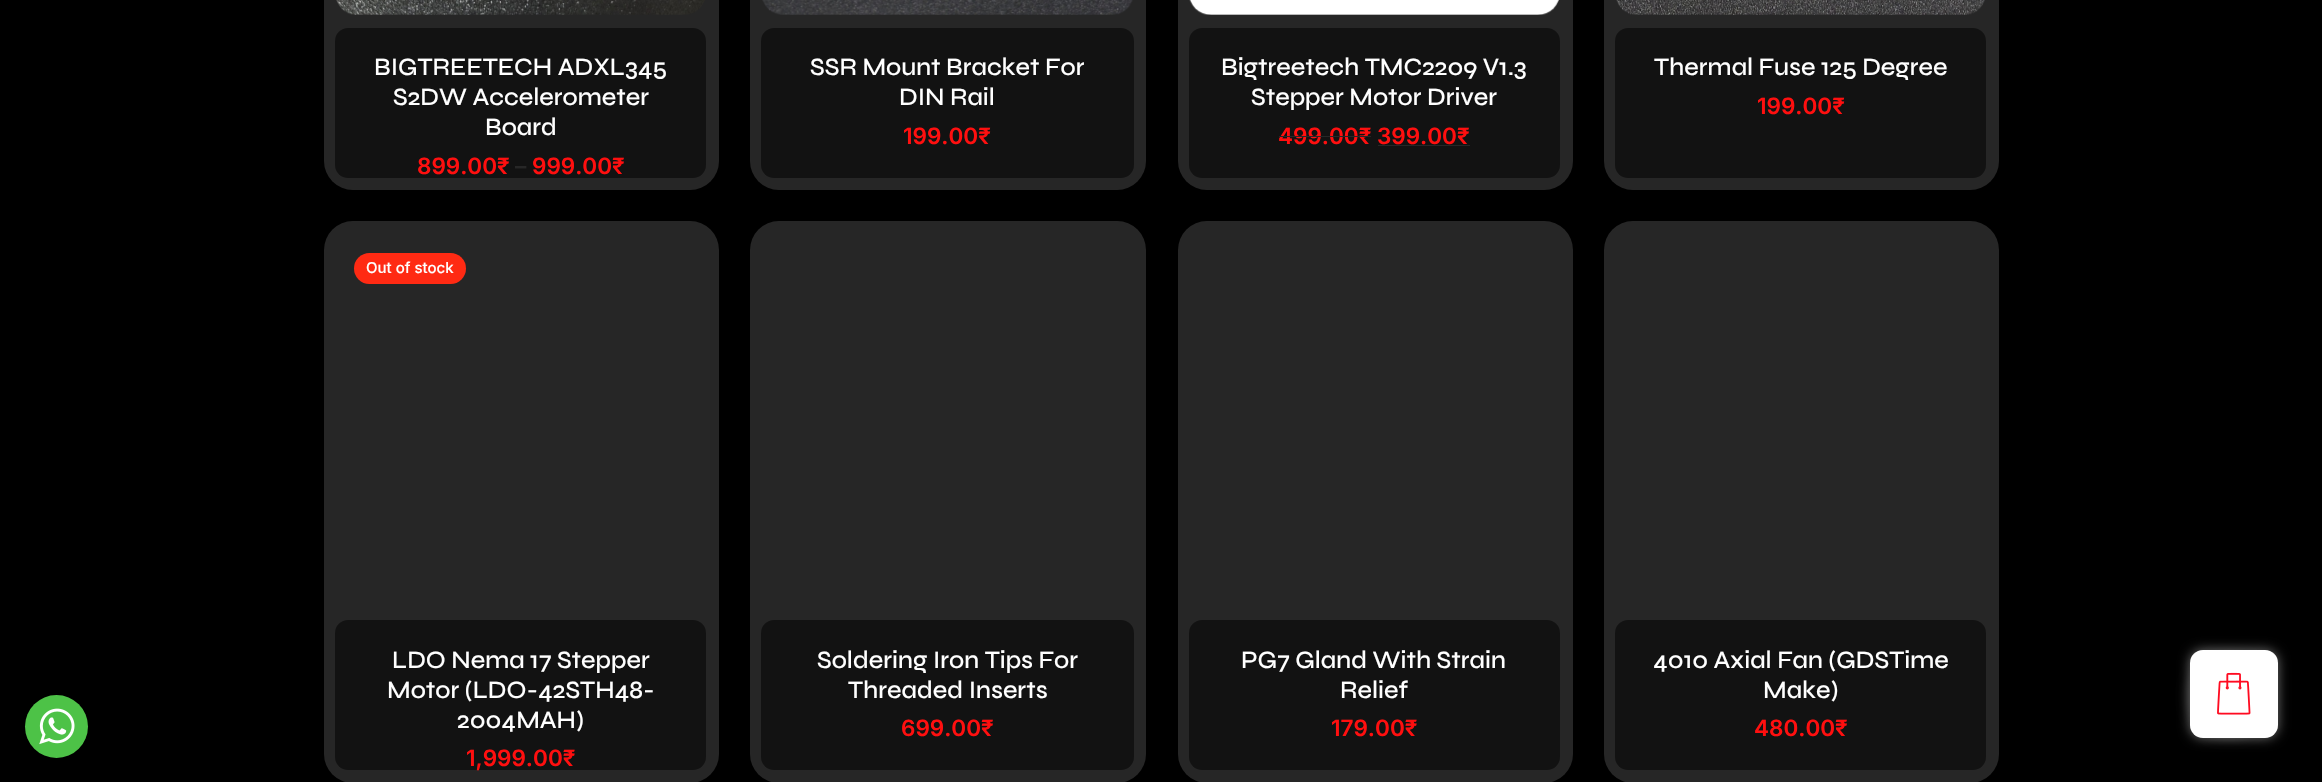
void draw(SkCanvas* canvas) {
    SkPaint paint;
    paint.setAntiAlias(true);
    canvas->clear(0xFF000000);
    paint.setColor(0xFF4DC247);
    canvas->drawCircle(56.5f, 726.5f, 31.5f, paint);
    canvas->drawImageRect(SkImages::DeferredFromEncodedData(SkData::MakeFromFileName("img1.png")), SkRect::MakeXYWH(39, 708, 36, 37), SkSamplingOptions());
    paint.setColor(0xFF262626);
    canvas->drawRoundRect(SkRect::MakeXYWH(324, -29, 395, 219), 29, 29, paint);
    canvas->drawImageRect(SkImages::DeferredFromEncodedData(SkData::MakeFromFileName("img2.png")), SkRect::MakeXYWH(336, 0, 369, 15), SkSamplingOptions());
    paint.setColor(0xFF121212);
    canvas->drawRoundRect(SkRect::MakeXYWH(335, 28, 371, 150), 13, 13, paint);
    SkFont font1(fontMgr->matchFamilyStyle("Syne", SkFontStyle(500, SkFontStyle::kNormal_Width, SkFontStyle::kUpright_Slant)), 25);
    font1.setSubpixel(true);
    paint.setColor(0xFFFFFFFF);
    canvas->drawString("BIGTREETECH ADXL345", 374, 75, font1, paint);
    canvas->drawString("S2DW Accelerometer", 393, 105, font1, paint);
    canvas->drawString("Board", 485, 135, font1, paint);
    SkFont font2(fontMgr->matchFamilyStyle("Inter", SkFontStyle(600, SkFontStyle::kNormal_Width, SkFontStyle::kUpright_Slant)), 22.5f);
    font2.setSubpixel(true);
    paint.setColor(0xFFFF0F0F);
    canvas->drawString("899.00₹", 417, 174, font2, paint);
    paint.setColor(0xFF272727);
    canvas->drawString("–", 515, 174, font2, paint);
    paint.setColor(0xFFFF0F0F);
    canvas->drawString("999.00₹", 532, 174, font2, paint);
    paint.setColor(0xFF262626);
    canvas->drawRoundRect(SkRect::MakeXYWH(750, -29, 396, 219), 29, 29, paint);
    canvas->drawImageRect(SkImages::DeferredFromEncodedData(SkData::MakeFromFileName("img3.png")), SkRect::MakeXYWH(762, 0, 371, 15), SkSamplingOptions());
    paint.setColor(0xFF121212);
    canvas->drawRoundRect(SkRect::MakeXYWH(761, 28, 373, 150), 13, 13, paint);
    paint.setColor(0xFFFFFFFF);
    canvas->drawString("SSR Mount Bracket For", 810, 75, font1, paint);
    canvas->drawString("DIN Rail", 899, 105, font1, paint);
    paint.setColor(0xFFFF0F0F);
    canvas->drawString("199.00₹", 903, 144, font2, paint);
    paint.setColor(0xFF262626);
    canvas->drawRoundRect(SkRect::MakeXYWH(1178, -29, 395, 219), 29, 29, paint);
    canvas->drawImageRect(SkImages::DeferredFromEncodedData(SkData::MakeFromFileName("img4.png")), SkRect::MakeXYWH(1189, 0, 370, 15), SkSamplingOptions());
    paint.setColor(0xFF121212);
    canvas->drawRoundRect(SkRect::MakeXYWH(1189, 28, 371, 150), 13, 13, paint);
    paint.setColor(0xFFFFFFFF);
    canvas->drawString("Bigtreetech TMC2209 V1.3", 1221, 75, font1, paint);
    canvas->drawString("Stepper Motor Driver", 1251, 105, font1, paint);
    paint.setColor(0xFFFF0F0F);
    canvas->drawString("499.00₹ 399.00₹", 1278, 144, font2, paint);
    paint.setColor(0xFF272727);
    canvas->drawRect(SkRect::MakeXYWH(1279, 136, 92, 1), paint);
    canvas->drawRect(SkRect::MakeXYWH(1378, 145, 92, 1), paint);
    paint.setColor(0xFF262626);
    canvas->drawRoundRect(SkRect::MakeXYWH(1604, -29, 395, 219), 29, 29, paint);
    canvas->drawImageRect(SkImages::DeferredFromEncodedData(SkData::MakeFromFileName("img5.png")), SkRect::MakeXYWH(1616, 0, 369, 15), SkSamplingOptions());
    paint.setColor(0xFF121212);
    canvas->drawRoundRect(SkRect::MakeXYWH(1615, 28, 371, 150), 13, 13, paint);
    paint.setColor(0xFFFFFFFF);
    canvas->drawString("Thermal Fuse 125 Degree", 1654, 75, font1, paint);
    paint.setColor(0xFFFF0F0F);
    canvas->drawString("199.00₹", 1757, 114, font2, paint);
    paint.setColor(0xFF262626);
    canvas->drawRoundRect(SkRect::MakeXYWH(324, 221, 395, 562), 29, 29, paint);
    paint.setColor(0xFFFF2A13);
    canvas->drawRoundRect(SkRect::MakeXYWH(354, 253, 112, 31), 15.5f, 15.5f, paint);
    SkFont font3(fontMgr->matchFamilyStyle("Inter", SkFontStyle(500, SkFontStyle::kNormal_Width, SkFontStyle::kUpright_Slant)), 15);
    font3.setSubpixel(true);
    paint.setColor(0xFFFFFFFF);
    canvas->drawString("Out of stock", 366, 273, font3, paint);
    paint.setColor(0xFF121212);
    canvas->drawRoundRect(SkRect::MakeXYWH(335, 620, 371, 150), 13, 13, paint);
    paint.setColor(0xFFFFFFFF);
    canvas->drawString("LDO Nema 17 Stepper", 392, 668, font1, paint);
    canvas->drawString("Motor (LDO-42STH48-", 387, 698, font1, paint);
    canvas->drawString("2004MAH)", 457, 728, font1, paint);
    paint.setColor(0xFFFF0F0F);
    canvas->drawString("1,999.00₹", 466, 766, font2, paint);
    paint.setColor(0xFF262626);
    canvas->drawRoundRect(SkRect::MakeXYWH(750, 221, 396, 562), 29, 29, paint);
    paint.setColor(0xFF121212);
    canvas->drawRoundRect(SkRect::MakeXYWH(761, 620, 373, 150), 13, 13, paint);
    paint.setColor(0xFFFFFFFF);
    canvas->drawString("Soldering Iron Tips For", 817, 668, font1, paint);
    canvas->drawString("Threaded Inserts", 848, 698, font1, paint);
    paint.setColor(0xFFFF0F0F);
    canvas->drawString("699.00₹", 901, 736, font2, paint);
    paint.setColor(0xFF262626);
    canvas->drawRoundRect(SkRect::MakeXYWH(1178, 221, 395, 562), 29, 29, paint);
    paint.setColor(0xFF121212);
    canvas->drawRoundRect(SkRect::MakeXYWH(1189, 620, 371, 150), 13, 13, paint);
    paint.setColor(0xFFFFFFFF);
    canvas->drawString("PG7 Gland With Strain", 1241, 668, font1, paint);
    canvas->drawString("Relief", 1340, 698, font1, paint);
    paint.setColor(0xFFFF0F0F);
    canvas->drawString("179.00₹", 1331, 736, font2, paint);
    paint.setColor(0xFF262626);
    canvas->drawRoundRect(SkRect::MakeXYWH(1604, 221, 395, 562), 29, 29, paint);
    paint.setColor(0xFF121212);
    canvas->drawRoundRect(SkRect::MakeXYWH(1615, 620, 371, 150), 13, 13, paint);
    paint.setColor(0xFFFFFFFF);
    canvas->drawString("4010 Axial Fan (GDSTime", 1653, 668, font1, paint);
    canvas->drawString("Make)", 1763, 698, font1, paint);
    paint.setColor(0xFFFF0F0F);
    canvas->drawString("480.00₹", 1754, 736, font2, paint);
    paint.setColor(0x1ADDDDDD);
    paint.setMaskFilter(SkMaskFilter::MakeBlur(kNormal_SkBlurStyle, 4));
    canvas->drawRoundRect(SkRect::MakeXYWH(2185, 653, 88, 87), 43.5f, 43.5f, paint);
    paint.setMaskFilter(nullptr);
    paint.setColor(0x99B7B7B7);
    paint.setMaskFilter(SkMaskFilter::MakeBlur(kNormal_SkBlurStyle, 6));
    canvas->drawRoundRect(SkRect::MakeXYWH(2190, 650, 88, 88), 13, 13, paint);
    paint.setMaskFilter(nullptr);
    paint.setColor(0xFFFFFFFF);
    canvas->drawRoundRect(SkRect::MakeXYWH(2190, 650, 88, 88), 13, 13, paint);
    canvas->drawImageRect(SkImages::DeferredFromEncodedData(SkData::MakeFromFileName("img6.png")), SkRect::MakeXYWH(2217, 672, 34, 43), SkSamplingOptions());
}
